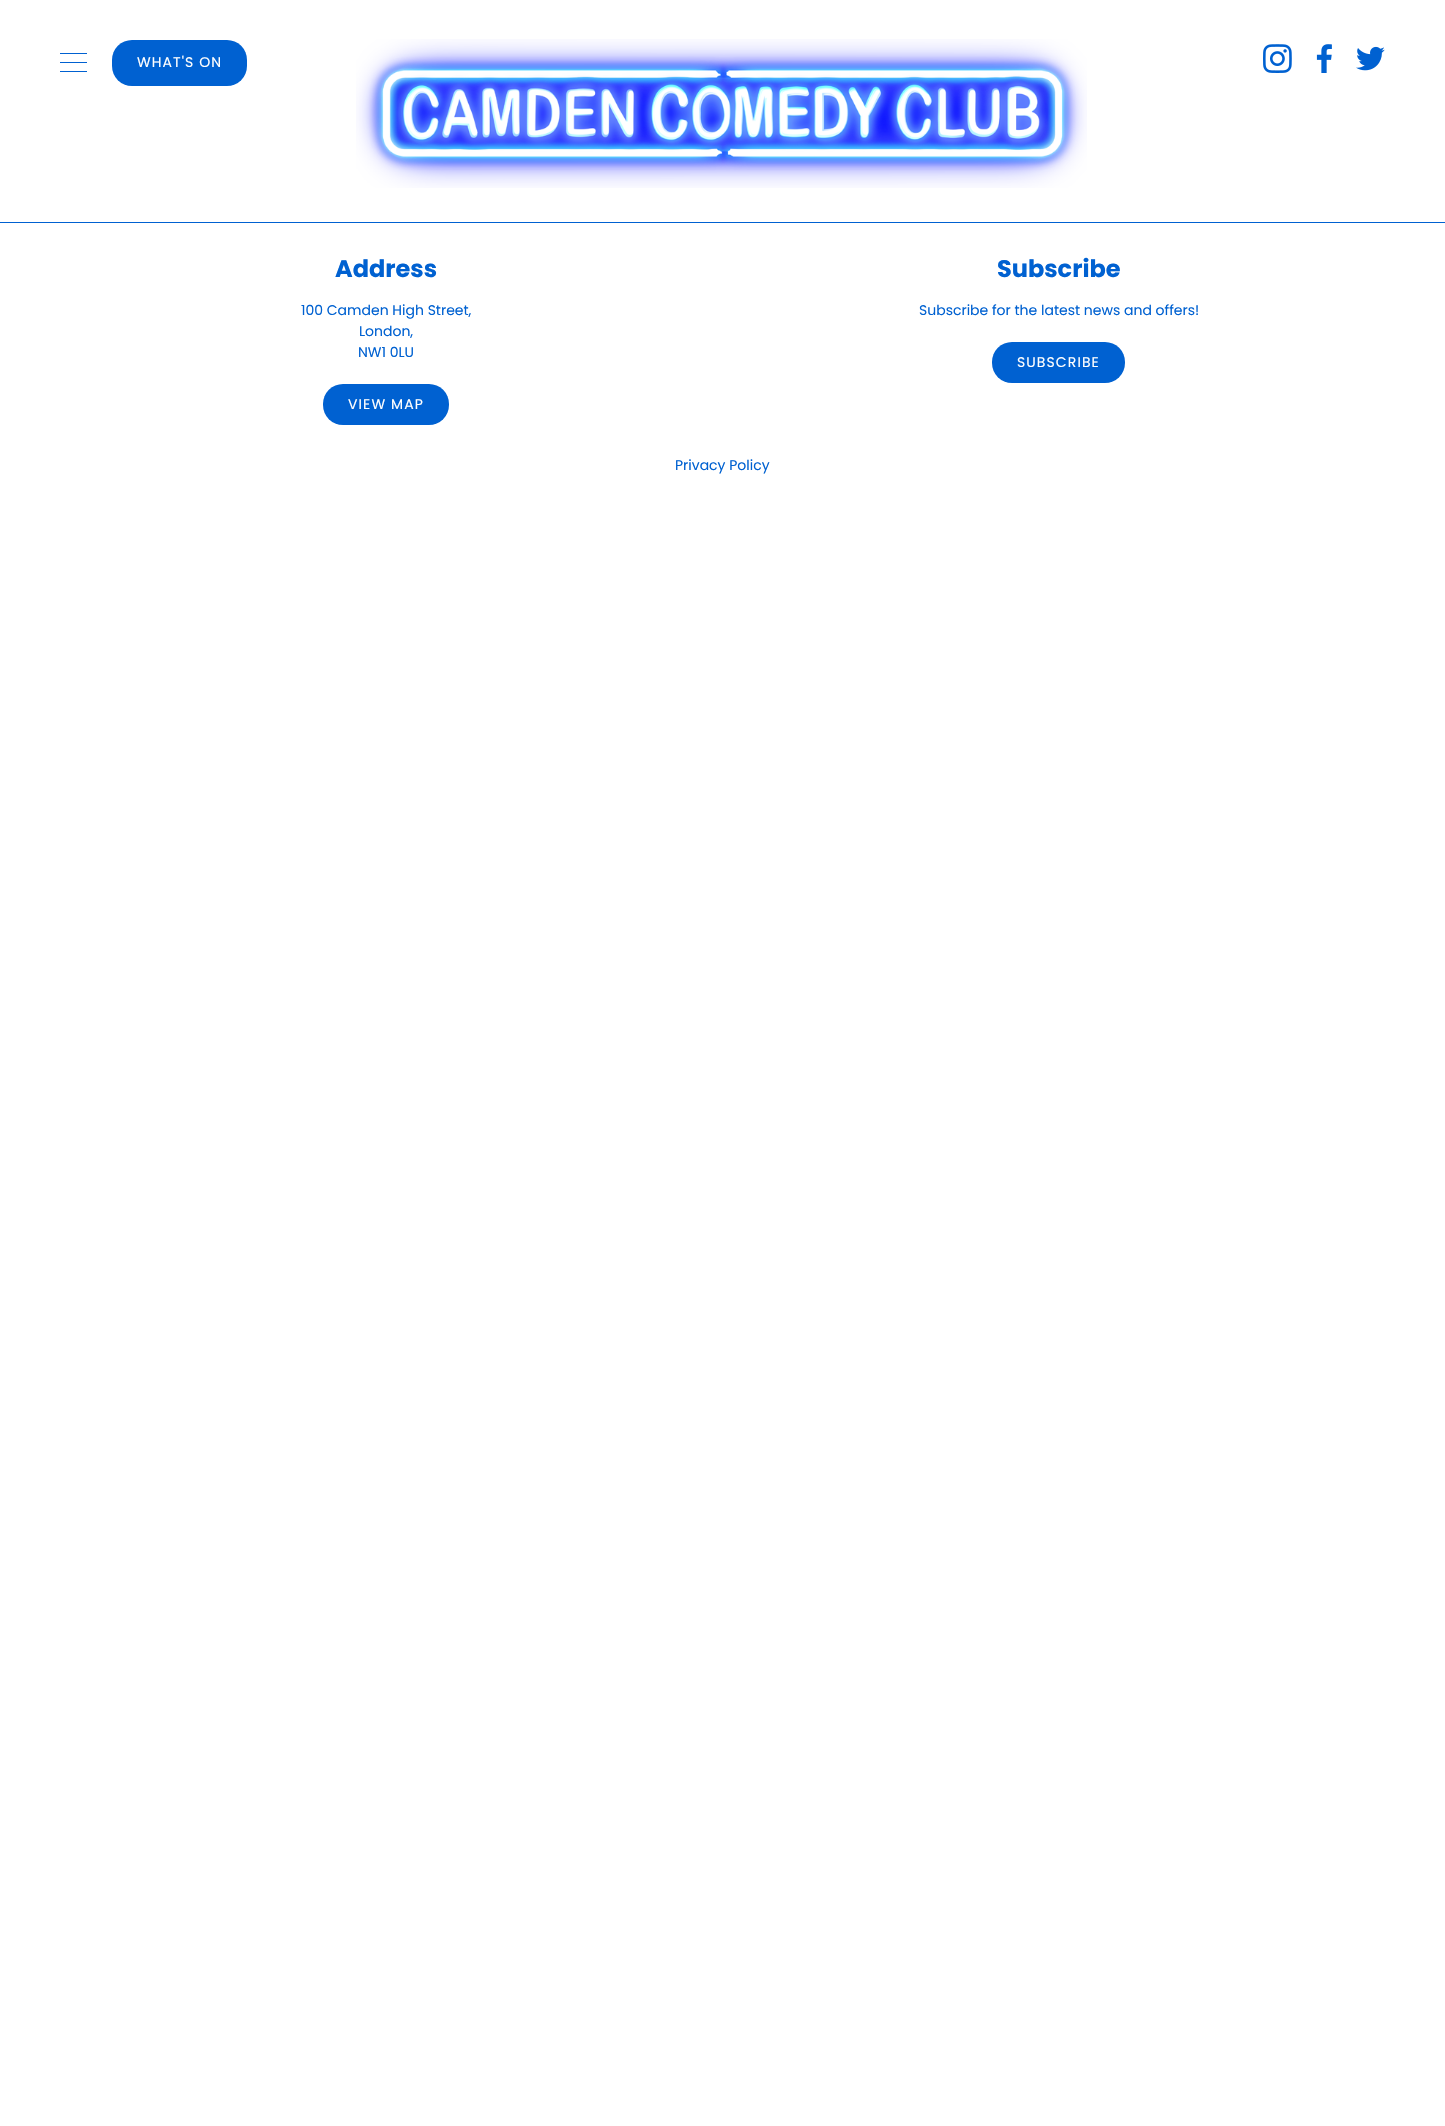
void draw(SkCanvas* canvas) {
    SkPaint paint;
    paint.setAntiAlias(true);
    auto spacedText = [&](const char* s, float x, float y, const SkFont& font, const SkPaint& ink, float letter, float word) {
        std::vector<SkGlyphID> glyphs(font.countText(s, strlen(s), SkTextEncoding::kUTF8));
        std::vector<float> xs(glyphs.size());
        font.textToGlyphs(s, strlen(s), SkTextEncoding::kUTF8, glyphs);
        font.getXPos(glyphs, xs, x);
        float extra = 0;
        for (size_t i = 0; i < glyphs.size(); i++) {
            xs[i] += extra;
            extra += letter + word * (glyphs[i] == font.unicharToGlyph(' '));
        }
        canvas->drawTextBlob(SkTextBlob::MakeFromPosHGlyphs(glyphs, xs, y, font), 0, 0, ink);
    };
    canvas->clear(0xFFFFFFFF);
    paint.setColor(0xFF0061D1);
    canvas->drawRect(SkRect::MakeXYWH(60, 53, 27, 1), paint);
    canvas->drawRect(SkRect::MakeXYWH(60, 62, 27, 1), paint);
    canvas->drawRect(SkRect::MakeXYWH(60, 71, 27, 1), paint);
    canvas->drawRoundRect(SkRect::MakeXYWH(112, 40, 135, 46), 20, 20, paint);
    SkFont font1(fontMgr->matchFamilyStyle("Poppins", SkFontStyle::Normal()), 14);
    font1.setSubpixel(true);
    paint.setColor(0xFFFFFFFF);
    spacedText("WHAT'S ON", 137, 67, font1, paint, 1.1f, 0);
    canvas->drawImageRect(SkImages::DeferredFromEncodedData(SkData::MakeFromFileName("img1.png")), SkRect::MakeXYWH(356, 39, 731, 149), SkSamplingOptions());
    canvas->drawImageRect(SkImages::DeferredFromEncodedData(SkData::MakeFromFileName("img2.png")), SkRect::MakeXYWH(1263, 44, 29, 29), SkSamplingOptions());
    canvas->drawImageRect(SkImages::DeferredFromEncodedData(SkData::MakeFromFileName("img3.png")), SkRect::MakeXYWH(1316, 44, 16, 29), SkSamplingOptions());
    canvas->drawImageRect(SkImages::DeferredFromEncodedData(SkData::MakeFromFileName("img4.png")), SkRect::MakeXYWH(1356, 46, 29, 25), SkSamplingOptions());
    paint.setColor(0xFF0061D1);
    canvas->drawRect(SkRect::MakeXYWH(0, 222, 1445, 1), paint);
    SkFont font2(fontMgr->matchFamilyStyle("Poppins", SkFontStyle::Bold()), 24);
    font2.setSubpixel(true);
    canvas->drawString("Address", 335, 277, font2, paint);
    canvas->drawString("100 Camden High Street,", 301, 315, font1, paint);
    canvas->drawString("London,", 359, 336, font1, paint);
    canvas->drawString("NW1 0LU", 358, 357, font1, paint);
    canvas->drawRoundRect(SkRect::MakeXYWH(323, 384, 126, 41), 20, 20, paint);
    paint.setColor(0xFFFFFFFF);
    spacedText("VIEW MAP", 348, 409, font1, paint, 1.1f, 0);
    paint.setColor(0xFF0061D1);
    canvas->drawString("Subscribe", 997, 277, font2, paint);
    canvas->drawString("Subscribe for the latest news and offers!", 919, 315, font1, paint);
    canvas->drawRoundRect(SkRect::MakeXYWH(992, 342, 133, 41), 20, 20, paint);
    paint.setColor(0xFFFFFFFF);
    spacedText("SUBSCRIBE", 1017, 367, font1, paint, 1.1f, 0);
    paint.setColor(0xFF0061D1);
    canvas->drawString("Privacy Policy", 675, 470, font1, paint);
}
